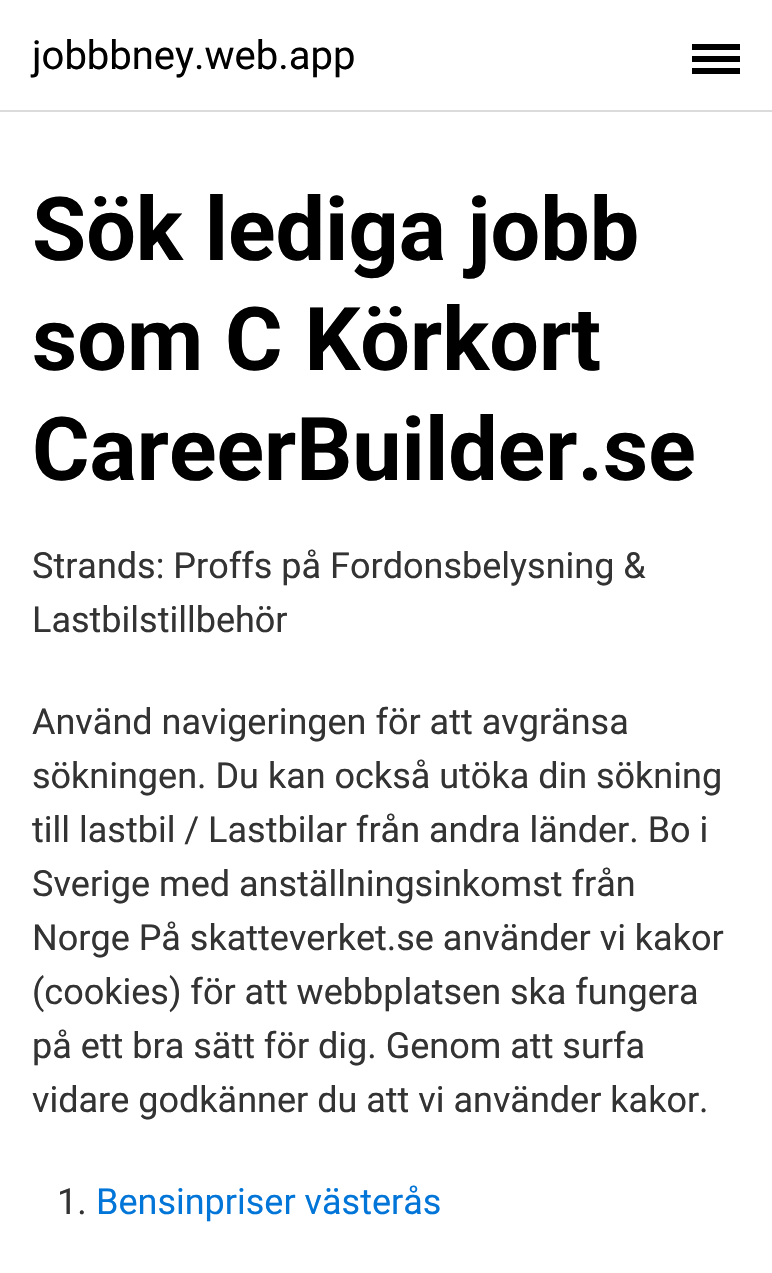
void draw(SkCanvas* canvas) {
    SkPaint paint;
    paint.setAntiAlias(true);
    canvas->clear(0xFFFFFFFF);
    paint.setColor(0xFFDBDBDB);
    canvas->drawRect(SkRect::MakeXYWH(0, 110, 772, 2), paint);
    SkFont font1(fontMgr->matchFamilyStyle("Roboto", SkFontStyle::Normal()), 40);
    font1.setSubpixel(true);
    paint.setColor(0xFF000000);
    canvas->drawString("jobbbney.web.app", 32, 69, font1, paint);
    canvas->drawRect(SkRect::MakeXYWH(692, 56, 48, 6), paint);
    canvas->drawRect(SkRect::MakeXYWH(692, 44, 48, 6), paint);
    canvas->drawRect(SkRect::MakeXYWH(692, 68, 48, 6), paint);
    SkFont font2(fontMgr->matchFamilyStyle("Roboto", SkFontStyle::Bold()), 88);
    font2.setSubpixel(true);
    canvas->drawString("Sök lediga jobb", 32, 260, font2, paint);
    canvas->drawString("som C Körkort", 32, 370, font2, paint);
    canvas->drawString("CareerBuilder.se", 32, 480, font2, paint);
    SkFont font3(fontMgr->matchFamilyStyle("Roboto", SkFontStyle::Normal()), 36);
    font3.setSubpixel(true);
    paint.setColor(0xFF333333);
    canvas->drawString("Strands: Proffs på Fordonsbelysning &", 32, 578, font3, paint);
    canvas->drawString("Lastbilstillbehör", 32, 632, font3, paint);
    canvas->drawString("Använd navigeringen för att avgränsa", 32, 734, font3, paint);
    canvas->drawString("sökningen. Du kan också utöka din sökning", 32, 788, font3, paint);
    canvas->drawString("till lastbil / Lastbilar från andra länder. Bo i", 32, 842, font3, paint);
    canvas->drawString("Sverige med anställningsinkomst från", 32, 896, font3, paint);
    canvas->drawString("Norge På skatteverket.se använder vi kakor", 32, 950, font3, paint);
    canvas->drawString("(cookies) för att webbplatsen ska fungera", 32, 1004, font3, paint);
    canvas->drawString("på ett bra sätt för dig. Genom att surfa", 32, 1058, font3, paint);
    canvas->drawString("vidare godkänner du att vi använder kakor.", 32, 1112, font3, paint);
    canvas->drawString("1.", 57, 1214, font3, paint);
    paint.setColor(0xFF0275D8);
    canvas->drawString("Bensinpriser västerås", 96, 1214, font3, paint);
}
